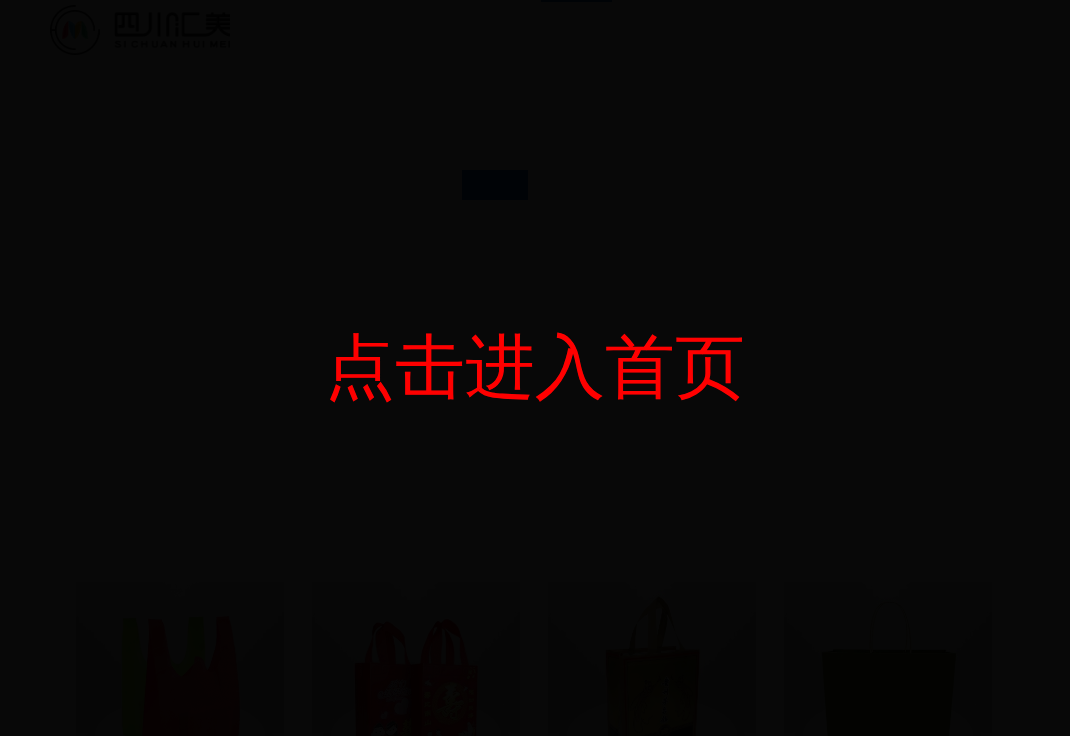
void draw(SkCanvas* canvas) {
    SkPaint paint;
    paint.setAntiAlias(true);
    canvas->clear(0xFF080808);
    paint.setColor(0xFF000306);
    canvas->drawRect(SkRect::MakeXYWH(541, 0, 71, 2), paint);
    canvas->drawImageRect(SkImages::DeferredFromEncodedData(SkData::MakeFromFileName("img1.png")), SkRect::MakeXYWH(50, 5, 181, 50), SkSamplingOptions());
    canvas->drawRect(SkRect::MakeXYWH(462, 170, 66, 30), paint);
    SkFont font1(fontMgr->matchFamilyStyle("WenQuanYi Zen Hei", SkFontStyle(500, SkFontStyle::kNormal_Width, SkFontStyle::kUpright_Slant)), 70);
    font1.setSubpixel(true);
    paint.setColor(0xFFFF0000);
    canvas->drawString("点击进入首页", 325, 391, font1, paint);
    canvas->drawImageRect(SkImages::DeferredFromEncodedData(SkData::MakeFromFileName("img2.png")), SkRect::MakeXYWH(76, 582, 208, 154), SkSamplingOptions());
    canvas->drawImageRect(SkImages::DeferredFromEncodedData(SkData::MakeFromFileName("img3.png")), SkRect::MakeXYWH(312, 582, 208, 154), SkSamplingOptions());
    canvas->drawImageRect(SkImages::DeferredFromEncodedData(SkData::MakeFromFileName("img4.png")), SkRect::MakeXYWH(548, 582, 208, 154), SkSamplingOptions());
    canvas->drawImageRect(SkImages::DeferredFromEncodedData(SkData::MakeFromFileName("img5.png")), SkRect::MakeXYWH(784, 582, 208, 154), SkSamplingOptions());
}
